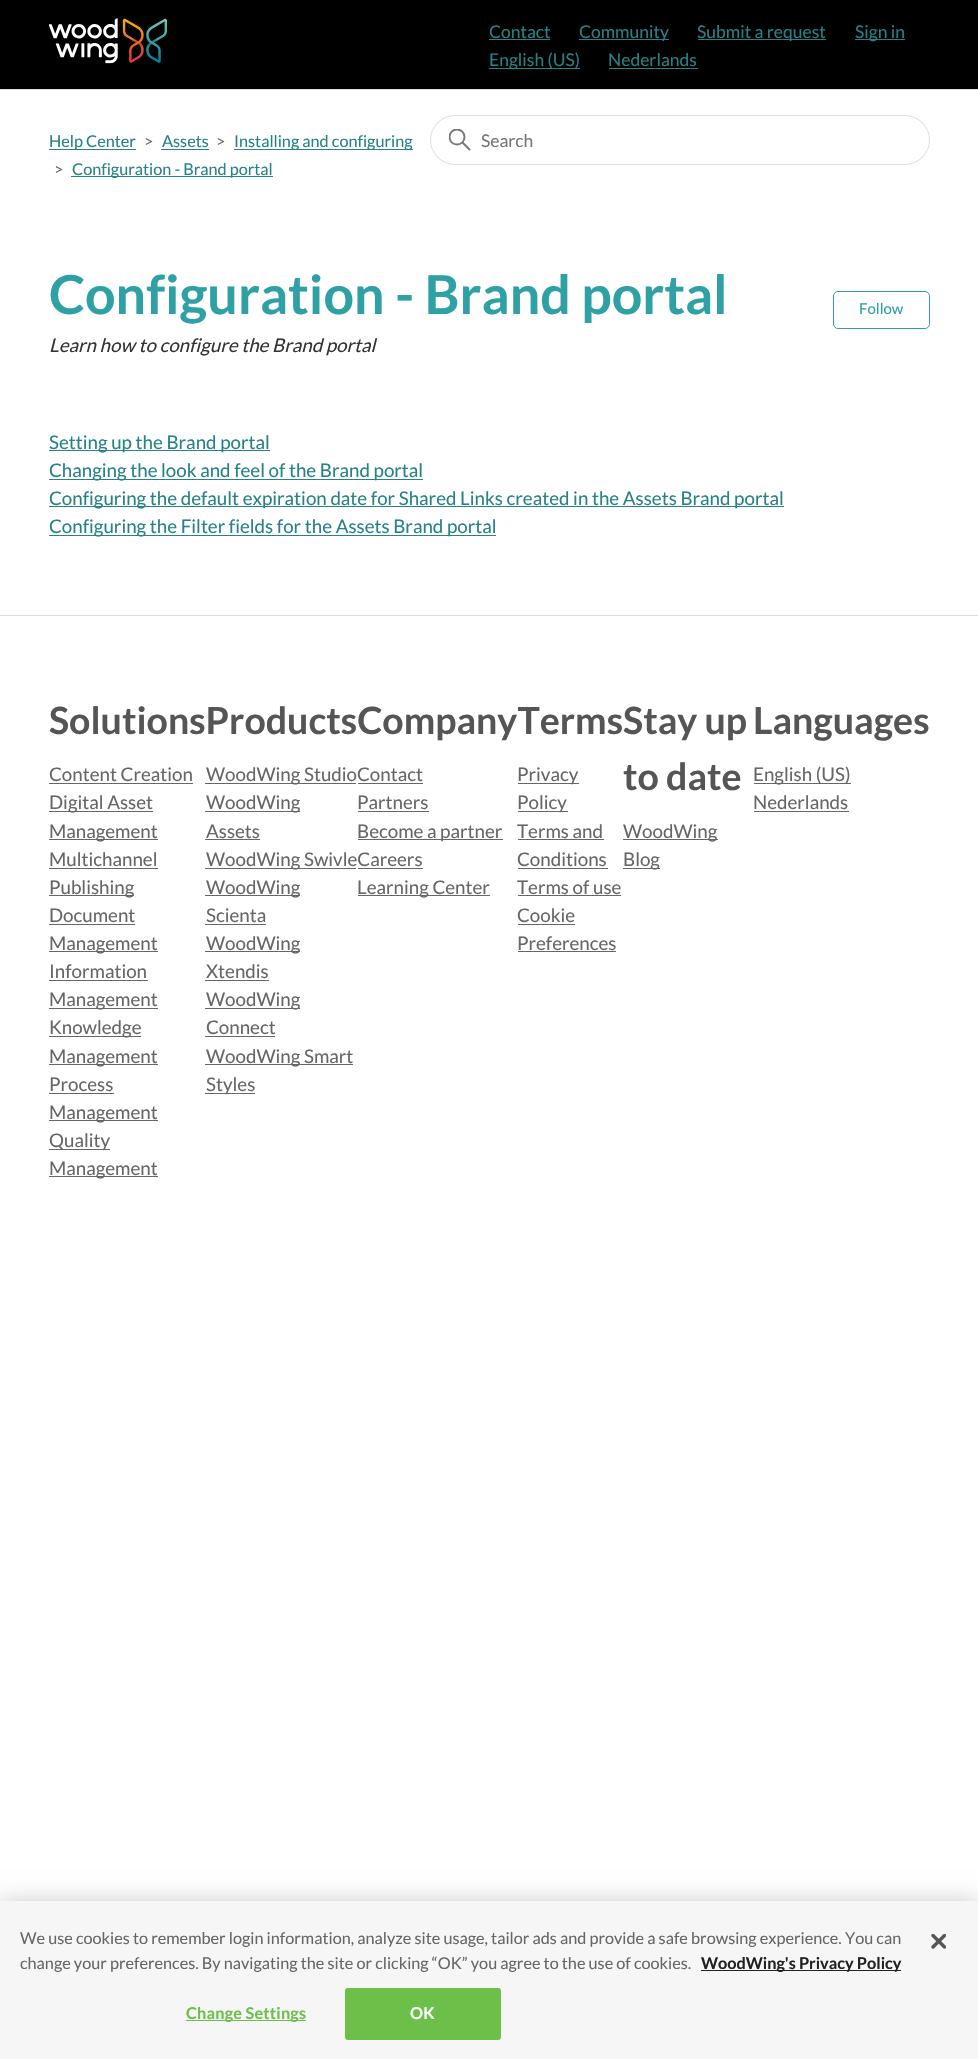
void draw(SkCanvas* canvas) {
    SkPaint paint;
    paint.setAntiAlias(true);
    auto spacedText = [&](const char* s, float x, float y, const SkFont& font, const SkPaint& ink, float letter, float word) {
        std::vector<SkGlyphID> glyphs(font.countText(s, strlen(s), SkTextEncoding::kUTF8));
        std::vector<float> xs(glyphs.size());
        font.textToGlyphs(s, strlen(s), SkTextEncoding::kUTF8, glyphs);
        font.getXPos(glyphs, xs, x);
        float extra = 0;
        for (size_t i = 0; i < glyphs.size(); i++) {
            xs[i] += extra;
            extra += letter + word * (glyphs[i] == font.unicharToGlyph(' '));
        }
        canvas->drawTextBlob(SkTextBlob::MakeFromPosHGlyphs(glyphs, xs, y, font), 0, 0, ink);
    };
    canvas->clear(0xFFFFFFFF);
    paint.setColor(0xFF000000);
    canvas->drawRect(SkRect::MakeXYWH(0, 0, 978, 89), paint);
    canvas->drawImageRect(SkImages::DeferredFromEncodedData(SkData::MakeFromFileName("img1.png")), SkRect::MakeXYWH(49, 18, 118, 46), SkSamplingOptions());
    SkFont font1(fontMgr->matchFamilyStyle("Lato", SkFontStyle::Normal()), 17.5f);
    font1.setSubpixel(true);
    paint.setColor(0xFF268285);
    canvas->drawString("Contact", 489, 38, font1, paint);
    canvas->drawRect(SkRect::MakeXYWH(489, 39, 61, 1), paint);
    canvas->drawRect(SkRect::MakeXYWH(579, 39, 90, 1), paint);
    canvas->drawString("Community", 579, 38, font1, paint);
    canvas->drawRect(SkRect::MakeXYWH(698, 39, 128, 1), paint);
    canvas->drawString("Submit a request", 697, 38, font1, paint);
    canvas->drawRect(SkRect::MakeXYWH(855, 39, 50, 1), paint);
    canvas->drawString("Sign in", 855, 38, font1, paint);
    canvas->drawRect(SkRect::MakeXYWH(489, 68, 91, 1), paint);
    canvas->drawString("English (US)", 489, 66, font1, paint);
    canvas->drawString("Nederlands", 608, 66, font1, paint);
    canvas->drawRect(SkRect::MakeXYWH(609, 68, 89, 1), paint);
    paint.setColor(0xFFDDDDDD);
    canvas->drawRect(SkRect::MakeXYWH(0, 89, 978, 1), paint);
    paint.setColor(0xFF268285);
    canvas->drawRect(SkRect::MakeXYWH(49, 149, 87, 1), paint);
    SkFont font2(fontMgr->matchFamilyStyle("Lato", SkFontStyle::Normal()), 16.25f);
    font2.setSubpixel(true);
    canvas->drawString("Help Center", 49, 147, font2, paint);
    paint.setColor(0xFF666666);
    canvas->drawString(">", 144, 147, font2, paint);
    paint.setColor(0xFF268285);
    canvas->drawString("Assets", 162, 147, font2, paint);
    canvas->drawRect(SkRect::MakeXYWH(161, 149, 48, 1), paint);
    paint.setColor(0xFF666666);
    canvas->drawString(">", 216, 147, font2, paint);
    paint.setColor(0xFF268285);
    canvas->drawRect(SkRect::MakeXYWH(234, 149, 179, 1), paint);
    canvas->drawString("Installing and configuring", 234, 147, font2, paint);
    paint.setColor(0xFF666666);
    canvas->drawString(">", 54, 175, font2, paint);
    paint.setColor(0xFF268285);
    canvas->drawRect(SkRect::MakeXYWH(71, 176, 202, 1), paint);
    canvas->drawString("Configuration - Brand portal", 72, 175, font2, paint);
    paint.setStyle(SkPaint::kStroke_Style);
    paint.setStrokeWidth(1);
    paint.setColor(0xFFDDDDDD);
    canvas->drawRoundRect(SkRect::MakeXYWH(430.5f, 115.5f, 499, 49), 24.5f, 24.5f, paint);
    canvas->save();
    canvas->clipRect(SkRect::MakeXYWH(449, 129, 22, 22));
    paint.setStrokeWidth(1.9f);
    paint.setColor(0xFF777777);
    canvas->drawCircle(457, 137, 7.5f, paint);
    canvas->restore();
    paint.setStrokeCap(SkPaint::kRound_Cap);
    canvas->drawPath(SkPathBuilder().moveTo(469.5f, 149.5f).lineTo(463, 143).detach(), paint);
    paint.setStyle(SkPaint::kFill_Style);
    paint.setColor(0xFF757575);
    canvas->drawString("Search", 481, 147, font1, paint);
    SkFont font3(fontMgr->matchFamilyStyle("Lato", SkFontStyle::Bold()), 53.75f);
    font3.setSubpixel(true);
    paint.setColor(0xFF2FA0A3);
    canvas->drawString("Configuration - Brand portal", 49, 314, font3, paint);
    paint.setStyle(SkPaint::kStroke_Style);
    paint.setStrokeWidth(1);
    paint.setStrokeCap(SkPaint::kButt_Cap);
    canvas->drawRoundRect(SkRect::MakeXYWH(833.5f, 291.5f, 96, 37), 4.5f, 4.5f, paint);
    SkFont font4(fontMgr->matchFamilyStyle("Lato", SkFontStyle::Normal()), 15);
    font4.setSubpixel(true);
    paint.setStyle(SkPaint::kFill_Style);
    canvas->drawString("Follow", 859, 314, font4, paint);
    SkFont font5(fontMgr->matchFamilyStyle("Lato", SkFontStyle::Italic()), 18.75f);
    font5.setSubpixel(true);
    paint.setColor(0xFF333333);
    canvas->drawString("Learn how to configure the Brand portal", 49, 352, font5, paint);
    paint.setColor(0xFF268285);
    canvas->drawRect(SkRect::MakeXYWH(49, 450, 221, 1), paint);
    SkFont font6(fontMgr->matchFamilyStyle("Lato", SkFontStyle::Normal()), 18.75f);
    font6.setSubpixel(true);
    canvas->drawString("Setting up the Brand portal", 49, 449, font6, paint);
    canvas->drawRect(SkRect::MakeXYWH(49, 479, 374, 1), paint);
    canvas->drawString("Changing the look and feel of the Brand portal", 49, 477, font6, paint);
    canvas->drawRect(SkRect::MakeXYWH(49, 506, 735, 1), paint);
    canvas->drawString("Configuring the default expiration date for Shared Links created in the Assets Brand portal", 49, 505, font6, paint);
    canvas->drawRect(SkRect::MakeXYWH(49, 535, 447, 1), paint);
    canvas->drawString("Configuring the Filter fields for the Assets Brand portal", 49, 533, font6, paint);
    paint.setColor(0xFFDDDDDD);
    canvas->drawRect(SkRect::MakeXYWH(0, 615, 978, 1), paint);
    SkFont font7(fontMgr->matchFamilyStyle("Lato", SkFontStyle::Bold()), 37.5f);
    font7.setSubpixel(true);
    paint.setColor(0xFF555555);
    canvas->drawString("SolutionsProductsCompanyTermsStay up", 49, 734, font7, paint);
    paint.setColor(0xFF666666);
    canvas->drawString("Content Creation", 49, 781, font6, paint);
    canvas->drawRect(SkRect::MakeXYWH(49, 783, 144, 1), paint);
    canvas->drawRect(SkRect::MakeXYWH(49, 811, 104, 1), paint);
    canvas->drawString("Digital Asset", 49, 809, font6, paint);
    canvas->drawRect(SkRect::MakeXYWH(49, 839, 109, 1), paint);
    canvas->drawString("Management", 49, 838, font6, paint);
    canvas->drawString("Multichannel", 49, 866, font6, paint);
    canvas->drawRect(SkRect::MakeXYWH(49, 868, 109, 1), paint);
    canvas->drawRect(SkRect::MakeXYWH(49, 895, 85, 1), paint);
    canvas->drawString("Publishing", 49, 894, font6, paint);
    canvas->drawString("Document", 49, 922, font6, paint);
    canvas->drawRect(SkRect::MakeXYWH(49, 924, 86, 1), paint);
    canvas->drawRect(SkRect::MakeXYWH(49, 951, 109, 1), paint);
    canvas->drawString("Management", 49, 950, font6, paint);
    canvas->drawString("Information", 49, 978, font6, paint);
    canvas->drawRect(SkRect::MakeXYWH(49, 980, 99, 1), paint);
    canvas->drawRect(SkRect::MakeXYWH(49, 1008, 109, 1), paint);
    canvas->drawString("Management", 49, 1006, font6, paint);
    canvas->drawRect(SkRect::MakeXYWH(49, 1036, 92, 1), paint);
    canvas->drawString("Knowledge", 49, 1034, font6, paint);
    canvas->drawRect(SkRect::MakeXYWH(49, 1064, 109, 1), paint);
    canvas->drawString("Management", 49, 1063, font6, paint);
    canvas->drawString("Process", 49, 1091, font6, paint);
    canvas->drawRect(SkRect::MakeXYWH(49, 1093, 65, 1), paint);
    canvas->drawRect(SkRect::MakeXYWH(49, 1120, 109, 1), paint);
    canvas->drawString("Management", 49, 1119, font6, paint);
    canvas->drawRect(SkRect::MakeXYWH(49, 1149, 61, 1), paint);
    canvas->drawString("Quality", 49, 1147, font6, paint);
    canvas->drawRect(SkRect::MakeXYWH(49, 1176, 109, 1), paint);
    canvas->drawString("Management", 49, 1175, font6, paint);
    paint.setColor(0xFF555555);
    canvas->drawString("Languages", 753, 734, font7, paint);
    paint.setColor(0xFF666666);
    canvas->drawRect(SkRect::MakeXYWH(754, 783, 97, 1), paint);
    canvas->drawString("English (US)", 753, 781, font6, paint);
    canvas->drawString("Nederlands", 753, 809, font6, paint);
    canvas->drawRect(SkRect::MakeXYWH(754, 811, 95, 1), paint);
    canvas->drawRect(SkRect::MakeXYWH(205, 783, 151, 1), paint);
    canvas->drawString("WoodWing Studio", 206, 781, font6, paint);
    canvas->drawRect(SkRect::MakeXYWH(205, 811, 95, 1), paint);
    canvas->drawString("WoodWing", 206, 809, font6, paint);
    canvas->drawString("Assets", 206, 838, font6, paint);
    canvas->drawRect(SkRect::MakeXYWH(205, 839, 55, 1), paint);
    canvas->drawRect(SkRect::MakeXYWH(205, 868, 151, 1), paint);
    canvas->drawString("WoodWing SwivleCareers", 206, 866, font6, paint);
    canvas->drawRect(SkRect::MakeXYWH(205, 895, 95, 1), paint);
    canvas->drawString("WoodWing", 206, 894, font6, paint);
    canvas->drawString("Scienta", 206, 922, font6, paint);
    canvas->drawRect(SkRect::MakeXYWH(205, 924, 61, 1), paint);
    canvas->drawRect(SkRect::MakeXYWH(205, 951, 95, 1), paint);
    canvas->drawString("WoodWing", 206, 950, font6, paint);
    canvas->drawString("Xtendis", 206, 978, font6, paint);
    canvas->drawRect(SkRect::MakeXYWH(205, 980, 64, 1), paint);
    canvas->drawRect(SkRect::MakeXYWH(205, 1008, 95, 1), paint);
    canvas->drawString("WoodWing", 206, 1006, font6, paint);
    canvas->drawString("Connect", 206, 1034, font6, paint);
    canvas->drawRect(SkRect::MakeXYWH(205, 1036, 70, 1), paint);
    canvas->drawRect(SkRect::MakeXYWH(205, 1064, 148, 1), paint);
    canvas->drawString("WoodWing Smart", 206, 1063, font6, paint);
    canvas->drawRect(SkRect::MakeXYWH(205, 1093, 50, 1), paint);
    canvas->drawString("Styles", 206, 1091, font6, paint);
    canvas->drawString("Contact", 357, 781, font6, paint);
    canvas->drawRect(SkRect::MakeXYWH(358, 783, 65, 1), paint);
    canvas->drawString("Partners", 357, 809, font6, paint);
    canvas->drawRect(SkRect::MakeXYWH(358, 811, 71, 1), paint);
    canvas->drawRect(SkRect::MakeXYWH(358, 839, 145, 1), paint);
    canvas->drawString("Become a partner", 357, 838, font6, paint);
    canvas->drawRect(SkRect::MakeXYWH(358, 868, 65, 1), paint);
    canvas->drawRect(SkRect::MakeXYWH(358, 895, 132, 1), paint);
    canvas->drawString("Learning Center", 357, 894, font6, paint);
    canvas->drawRect(SkRect::MakeXYWH(518, 783, 61, 1), paint);
    canvas->drawString("Privacy", 517, 781, font6, paint);
    canvas->drawRect(SkRect::MakeXYWH(518, 811, 50, 1), paint);
    canvas->drawString("Policy", 517, 809, font6, paint);
    canvas->drawString("Terms and", 517, 838, font6, paint);
    canvas->drawRect(SkRect::MakeXYWH(518, 839, 86, 1), paint);
    canvas->drawString("Conditions", 517, 866, font6, paint);
    canvas->drawRect(SkRect::MakeXYWH(518, 868, 90, 1), paint);
    canvas->drawString("Terms of use", 517, 894, font6, paint);
    canvas->drawRect(SkRect::MakeXYWH(518, 895, 103, 1), paint);
    canvas->drawString("Cookie", 517, 922, font6, paint);
    canvas->drawRect(SkRect::MakeXYWH(518, 924, 57, 1), paint);
    canvas->drawString("Preferences", 517, 950, font6, paint);
    canvas->drawRect(SkRect::MakeXYWH(518, 951, 98, 1), paint);
    paint.setColor(0xFF555555);
    canvas->drawString("to date", 623, 790, font7, paint);
    paint.setColor(0xFF666666);
    canvas->drawRect(SkRect::MakeXYWH(623, 839, 95, 1), paint);
    canvas->drawString("WoodWing", 623, 838, font6, paint);
    canvas->drawRect(SkRect::MakeXYWH(623, 868, 37, 1), paint);
    canvas->drawString("Blog", 623, 866, font6, paint);
    paint.setColor(0x33000000);
    paint.setMaskFilter(SkMaskFilter::MakeBlur(kNormal_SkBlurStyle, 11));
    canvas->drawRect(SkRect::MakeXYWH(0, 1901, 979, 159), paint);
    paint.setMaskFilter(nullptr);
    paint.setColor(0xFFF6F6F6);
    canvas->drawRect(SkRect::MakeXYWH(0, 1901, 978, 158), paint);
    paint.setColor(0xFF666666);
    canvas->drawString("We use cookies to remember login information, analyze site usage, tailor ads and provide a safe browsing experience. You can", 20, 1944, font2, paint);
    canvas->drawString("change your preferences. By navigating the site or clicking “OK” you agree to the use of cookies.", 20, 1969, font2, paint);
    paint.setColor(0xFF222222);
    canvas->drawRect(SkRect::MakeXYWH(701, 1970, 200, 1), paint);
    SkFont font8(fontMgr->matchFamilyStyle("Lato", SkFontStyle::Bold()), 16.25f);
    font8.setSubpixel(true);
    canvas->drawString("WoodWing's Privacy Policy", 701, 1969, font8, paint);
    paint.setColor(0xFF6CC04A);
    canvas->drawRect(SkRect::MakeXYWH(186, 2020, 120, 1), paint);
    spacedText("Change Settings", 186, 2019, font8, paint, 0.2f, 0);
    canvas->drawRoundRect(SkRect::MakeXYWH(345.5f, 1988.5f, 155, 51), 2, 2, paint);
    paint.setStyle(SkPaint::kStroke_Style);
    canvas->drawRoundRect(SkRect::MakeXYWH(345.5f, 1988.5f, 155, 51), 2, 2, paint);
    paint.setStyle(SkPaint::kFill_Style);
    paint.setColor(0xFFFFFFFF);
    spacedText("OK", 410, 2019, font8, paint, 0.2f, 0);
    canvas->drawImageRect(SkImages::DeferredFromEncodedData(SkData::MakeFromFileName("img2.png")), SkRect::MakeXYWH(931, 1934, 15, 15), SkSamplingOptions());
}
